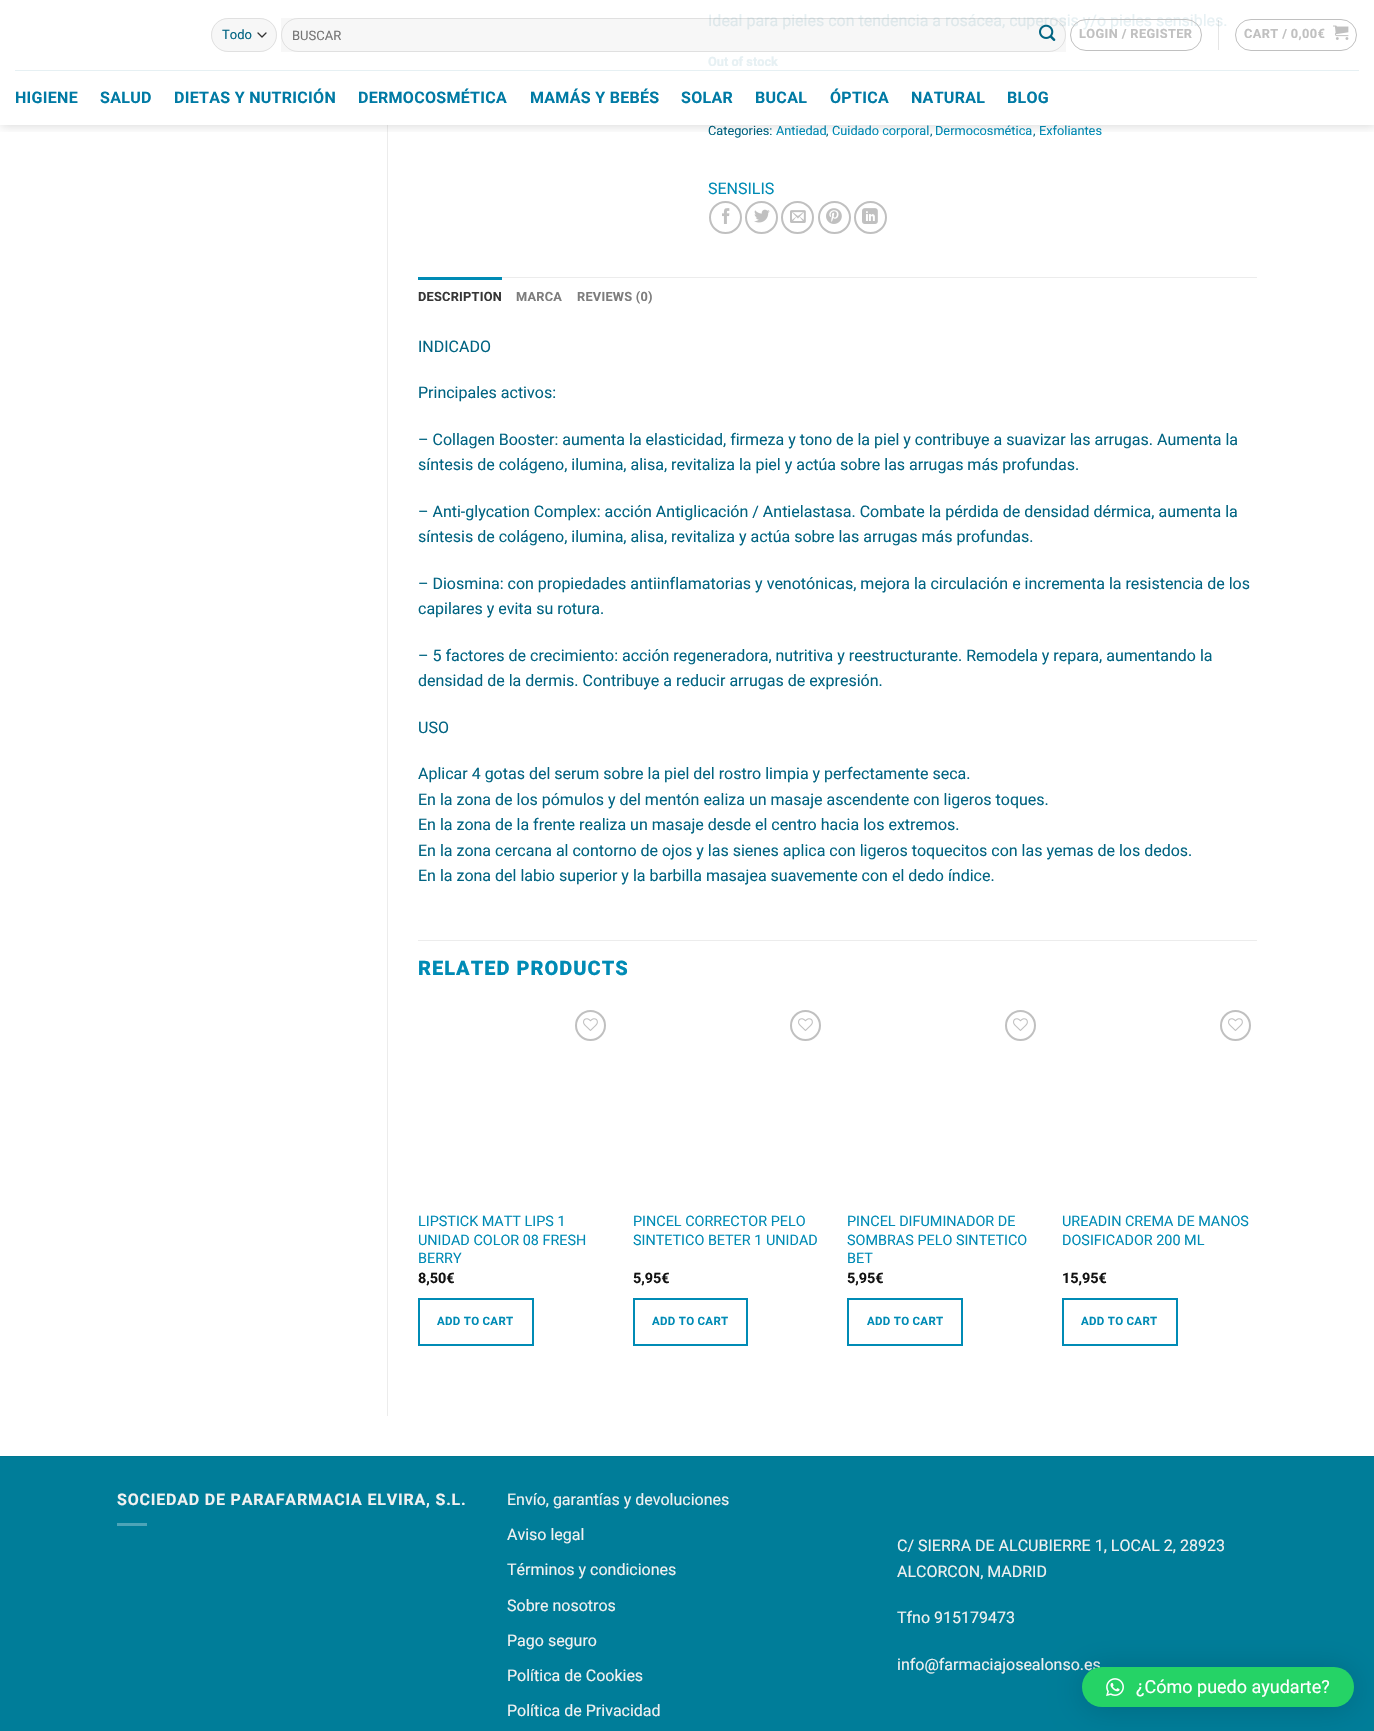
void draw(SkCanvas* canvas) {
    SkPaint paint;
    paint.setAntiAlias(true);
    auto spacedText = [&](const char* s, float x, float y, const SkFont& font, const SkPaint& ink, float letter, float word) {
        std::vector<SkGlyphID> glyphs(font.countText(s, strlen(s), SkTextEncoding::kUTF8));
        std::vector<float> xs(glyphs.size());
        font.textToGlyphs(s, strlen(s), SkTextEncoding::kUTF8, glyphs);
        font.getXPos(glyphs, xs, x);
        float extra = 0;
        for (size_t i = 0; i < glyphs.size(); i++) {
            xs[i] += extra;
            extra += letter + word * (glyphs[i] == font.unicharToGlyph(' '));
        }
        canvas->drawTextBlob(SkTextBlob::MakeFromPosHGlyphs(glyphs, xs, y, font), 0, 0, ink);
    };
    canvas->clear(0xFFFFFFFF);
    paint.setColor(0xFFECECEC);
    canvas->drawRect(SkRect::MakeXYWH(387, 125, 1, 1291), paint);
    SkFont font1(fontMgr->matchFamilyStyle("Roboto", SkFontStyle::Normal()), 16);
    font1.setSubpixel(true);
    paint.setColor(0xFFE6F0F3);
    canvas->drawString("Ideal para pieles con tendencia a rosácea, cuperosis y/o pieles sensibles.", 708, 26, font1, paint);
    SkFont font2(fontMgr->matchFamilyStyle("Roboto", SkFontStyle::Bold()), 12.75f);
    font2.setSubpixel(true);
    canvas->drawString("Out of stock", 708, 66, font2, paint);
    SkFont font3(fontMgr->matchFamilyStyle("Roboto", SkFontStyle::Normal()), 12.75f);
    font3.setSubpixel(true);
    paint.setColor(0xFF016482);
    canvas->drawString("Categories:", 708, 135, font3, paint);
    paint.setColor(0xFF008BB5);
    canvas->drawString("Antiedad", 776, 135, font3, paint);
    paint.setColor(0xFF016482);
    canvas->drawString(",", 826, 135, font3, paint);
    paint.setColor(0xFF008BB5);
    canvas->drawString("Cuidado corporal", 832, 135, font3, paint);
    paint.setColor(0xFF016482);
    canvas->drawString(",", 930, 135, font3, paint);
    paint.setColor(0xFF008BB5);
    canvas->drawString("Dermocosmética", 935, 135, font3, paint);
    paint.setColor(0xFF016482);
    canvas->drawString(",", 1033, 135, font3, paint);
    paint.setColor(0xFF008BB5);
    canvas->drawString("Exfoliantes", 1039, 135, font3, paint);
    canvas->drawString("SENSILIS", 708, 194, font1, paint);
    paint.setStyle(SkPaint::kStroke_Style);
    paint.setStrokeWidth(2);
    paint.setColor(0xFFC0C0C0);
    canvas->drawCircle(725.5f, 217.5f, 15.5f, paint);
    canvas->drawImageRect(SkImages::DeferredFromEncodedData(SkData::MakeFromFileName("img1.png")), SkRect::MakeXYWH(722, 208, 8, 16), SkSamplingOptions());
    canvas->drawCircle(761.5f, 217.5f, 15.5f, paint);
    canvas->drawImageRect(SkImages::DeferredFromEncodedData(SkData::MakeFromFileName("img2.png")), SkRect::MakeXYWH(754, 209, 16, 14), SkSamplingOptions());
    canvas->drawCircle(797.5f, 217.5f, 15.5f, paint);
    canvas->drawImageRect(SkImages::DeferredFromEncodedData(SkData::MakeFromFileName("img3.png")), SkRect::MakeXYWH(790, 210, 16, 13), SkSamplingOptions());
    canvas->drawCircle(834.5f, 217.5f, 15.5f, paint);
    canvas->drawImageRect(SkImages::DeferredFromEncodedData(SkData::MakeFromFileName("img4.png")), SkRect::MakeXYWH(826, 208, 16, 16), SkSamplingOptions());
    canvas->drawCircle(870.5f, 217.5f, 15.5f, paint);
    canvas->drawImageRect(SkImages::DeferredFromEncodedData(SkData::MakeFromFileName("img5.png")), SkRect::MakeXYWH(862, 208, 16, 16), SkSamplingOptions());
    paint.setStyle(SkPaint::kFill_Style);
    paint.setColor(0xFFECECEC);
    canvas->drawRect(SkRect::MakeXYWH(502, 277, 755, 1), paint);
    paint.setColor(0xFF008BB5);
    canvas->drawRect(SkRect::MakeXYWH(418, 277, 84, 3), paint);
    paint.setColor(0xFF363636);
    spacedText("DESCRIPTION", 418, 301, font2, paint, 0.25f, 0);
    paint.setColor(0xFF7D7D7D);
    spacedText("MARCA", 516, 301, font2, paint, 0.25f, 0);
    spacedText("REVIEWS (0)", 577, 301, font2, paint, 0.25f, 0);
    paint.setColor(0xFF016482);
    canvas->drawString("INDICADO", 418, 352, font1, paint);
    canvas->drawString("Principales activos:", 418, 398, font1, paint);
    canvas->drawString("– Collagen Booster: aumenta la elasticidad, firmeza y tono de la piel y contribuye a suavizar las arrugas. Aumenta la", 418, 445, font1, paint);
    canvas->drawString("síntesis de colágeno, ilumina, alisa, revitaliza la piel y actúa sobre las arrugas más profundas.", 418, 470, font1, paint);
    canvas->drawString("– Anti-glycation Complex: acción Antiglicación / Antielastasa. Combate la pérdida de densidad dérmica, aumenta la", 418, 517, font1, paint);
    canvas->drawString("síntesis de colágeno, ilumina, alisa, revitaliza y actúa sobre las arrugas más profundas.", 418, 542, font1, paint);
    canvas->drawString("– Diosmina: con propiedades antiinflamatorias y venotónicas, mejora la circulación e incrementa la resistencia de los", 418, 589, font1, paint);
    canvas->drawString("capilares y evita su rotura.", 418, 614, font1, paint);
    canvas->drawString("– 5 factores de crecimiento: acción regeneradora, nutritiva y reestructurante. Remodela y repara, aumentando la", 418, 661, font1, paint);
    canvas->drawString("densidad de la dermis. Contribuye a reducir arrugas de expresión.", 418, 686, font1, paint);
    canvas->drawString("USO", 418, 733, font1, paint);
    canvas->drawString("Aplicar 4 gotas del serum sobre la piel del rostro limpia y perfectamente seca.", 418, 779, font1, paint);
    canvas->drawString("En la zona de los pómulos y del mentón ealiza un masaje ascendente con ligeros toques.", 418, 805, font1, paint);
    canvas->drawString("En la zona de la frente realiza un masaje desde el centro hacia los extremos.", 418, 830, font1, paint);
    canvas->drawString("En la zona cercana al contorno de ojos y las sienes aplica con ligeros toquecitos con las yemas de los dedos.", 418, 856, font1, paint);
    canvas->drawString("En la zona del labio superior y la barbilla masajea suavemente con el dedo índice.", 418, 881, font1, paint);
    paint.setColor(0xFFECECEC);
    canvas->drawRect(SkRect::MakeXYWH(418, 940, 839, 1), paint);
    SkFont font4(fontMgr->matchFamilyStyle("Roboto", SkFontStyle(900, SkFontStyle::kNormal_Width, SkFontStyle::kUpright_Slant)), 20);
    font4.setSubpixel(true);
    paint.setColor(0xFF008BB5);
    spacedText("RELATED PRODUCTS", 418, 975, font4, paint, 1, 0);
    paint.setStyle(SkPaint::kStroke_Style);
    paint.setColor(0xFFC0C0C0);
    canvas->drawCircle(590.5f, 1025.5f, 14.5f, paint);
    canvas->drawImageRect(SkImages::DeferredFromEncodedData(SkData::MakeFromFileName("img6.png")), SkRect::MakeXYWH(583, 1018, 15, 13), SkSamplingOptions());
    SkFont font5(fontMgr->matchFamilyStyle("Roboto", SkFontStyle::Normal()), 14.4f);
    font5.setSubpixel(true);
    paint.setStyle(SkPaint::kFill_Style);
    paint.setColor(0xFF008BB5);
    canvas->drawString("LIPSTICK MATT LIPS 1", 418, 1226, font5, paint);
    canvas->drawString("UNIDAD COLOR 08 FRESH", 418, 1245, font5, paint);
    canvas->drawString("BERRY", 418, 1263, font5, paint);
    SkFont font6(fontMgr->matchFamilyStyle("Roboto", SkFontStyle::Bold()), 14.4f);
    font6.setSubpixel(true);
    paint.setColor(0xFF111111);
    canvas->drawString("8,50€", 418, 1283, font6, paint);
    paint.setStyle(SkPaint::kStroke_Style);
    paint.setColor(0xFF008BB5);
    canvas->drawRect(SkRect::MakeXYWH(419, 1299, 114, 46), paint);
    SkFont font7(fontMgr->matchFamilyStyle("Roboto", SkFontStyle::Bold()), 11.5f);
    font7.setSubpixel(true);
    paint.setStyle(SkPaint::kFill_Style);
    spacedText("ADD TO CART", 437, 1325, font7, paint, 0.3f, 0);
    paint.setStyle(SkPaint::kStroke_Style);
    paint.setColor(0xFFC0C0C0);
    canvas->drawCircle(805.5f, 1025.5f, 14.5f, paint);
    canvas->drawImageRect(SkImages::DeferredFromEncodedData(SkData::MakeFromFileName("img6.png")), SkRect::MakeXYWH(798, 1018, 15, 13), SkSamplingOptions());
    paint.setStyle(SkPaint::kFill_Style);
    paint.setColor(0xFF008BB5);
    canvas->drawString("PINCEL CORRECTOR PELO", 633, 1226, font5, paint);
    canvas->drawString("SINTETICO BETER 1 UNIDAD", 633, 1245, font5, paint);
    paint.setColor(0xFF111111);
    canvas->drawString("5,95€", 633, 1283, font6, paint);
    paint.setStyle(SkPaint::kStroke_Style);
    paint.setColor(0xFF008BB5);
    canvas->drawRect(SkRect::MakeXYWH(634, 1299, 113, 46), paint);
    paint.setStyle(SkPaint::kFill_Style);
    spacedText("ADD TO CART", 652, 1325, font7, paint, 0.3f, 0);
    paint.setStyle(SkPaint::kStroke_Style);
    paint.setColor(0xFFC0C0C0);
    canvas->drawCircle(1020.5f, 1025.5f, 14.5f, paint);
    canvas->drawImageRect(SkImages::DeferredFromEncodedData(SkData::MakeFromFileName("img6.png")), SkRect::MakeXYWH(1013, 1018, 15, 13), SkSamplingOptions());
    paint.setStyle(SkPaint::kFill_Style);
    paint.setColor(0xFF008BB5);
    canvas->drawString("PINCEL DIFUMINADOR DE", 847, 1226, font5, paint);
    canvas->drawString("SOMBRAS PELO SINTETICO", 847, 1245, font5, paint);
    canvas->drawString("BET", 847, 1263, font5, paint);
    paint.setColor(0xFF111111);
    canvas->drawString("5,95€", 847, 1283, font6, paint);
    paint.setStyle(SkPaint::kStroke_Style);
    paint.setColor(0xFF008BB5);
    canvas->drawRect(SkRect::MakeXYWH(848, 1299, 114, 46), paint);
    paint.setStyle(SkPaint::kFill_Style);
    spacedText("ADD TO CART", 867, 1325, font7, paint, 0.3f, 0);
    paint.setStyle(SkPaint::kStroke_Style);
    paint.setColor(0xFFC0C0C0);
    canvas->drawCircle(1235.5f, 1025.5f, 14.5f, paint);
    canvas->drawImageRect(SkImages::DeferredFromEncodedData(SkData::MakeFromFileName("img6.png")), SkRect::MakeXYWH(1228, 1018, 15, 13), SkSamplingOptions());
    paint.setStyle(SkPaint::kFill_Style);
    paint.setColor(0xFF008BB5);
    canvas->drawString("UREADIN CREMA DE MANOS", 1062, 1226, font5, paint);
    canvas->drawString("DOSIFICADOR 200 ML", 1062, 1245, font5, paint);
    paint.setColor(0xFF111111);
    canvas->drawString("15,95€", 1062, 1283, font6, paint);
    paint.setStyle(SkPaint::kStroke_Style);
    paint.setColor(0xFF008BB5);
    canvas->drawRect(SkRect::MakeXYWH(1063, 1299, 114, 46), paint);
    paint.setStyle(SkPaint::kFill_Style);
    spacedText("ADD TO CART", 1081, 1325, font7, paint, 0.3f, 0);
    canvas->save();
    canvas->clipRect(SkRect::MakeXYWH(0, 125, 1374, 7));
    paint.setColor(0x26000000);
    paint.setMaskFilter(SkMaskFilter::MakeBlur(kNormal_SkBlurStyle, 5));
    canvas->drawRect(SkRect::MakeXYWH(1, 1, 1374, 125), paint);
    paint.setMaskFilter(nullptr);
    canvas->restore();
    paint.setColor(0xFFF7F7F7);
    canvas->drawRoundRect(SkRect::MakeXYWH(211, 18, 66, 34), 17, 17, paint);
    paint.setStyle(SkPaint::kStroke_Style);
    paint.setStrokeWidth(1.3f);
    paint.setStrokeCap(SkPaint::kRound_Cap);
    paint.setStrokeJoin(SkPaint::kRound_Join);
    paint.setColor(0xFF333333);
    canvas->drawPath(SkPathBuilder().moveTo(258, 33).lineTo(262, 37).lineTo(266, 33).detach(), paint);
    paint.setStrokeWidth(1);
    paint.setStrokeCap(SkPaint::kButt_Cap);
    paint.setStrokeJoin(SkPaint::kMiter_Join);
    paint.setColor(0x17000000);
    canvas->drawRoundRect(SkRect::MakeXYWH(211.5f, 18.5f, 65, 33), 16.5f, 16.5f, paint);
    SkFont font8(fontMgr->matchFamilyStyle("Roboto", SkFontStyle::Normal()), 13);
    font8.setSubpixel(true);
    paint.setStyle(SkPaint::kFill_Style);
    paint.setColor(0xFF016482);
    canvas->drawString("Todo", 222, 39, font8, paint);
    paint.setColor(0x08000000);
    canvas->drawRect(SkRect::MakeXYWH(281, 18, 785, 34), paint);
    paint.setStyle(SkPaint::kStroke_Style);
    paint.setColor(0x17000000);
    canvas->drawRoundRect(SkRect::MakeXYWH(281.5f, 18.5f, 784, 33), 16.5f, 16.5f, paint);
    paint.setStyle(SkPaint::kFill_Style);
    paint.setColor(0xFF757575);
    canvas->drawString("BUSCAR", 292, 40, font8, paint);
    canvas->drawImageRect(SkImages::DeferredFromEncodedData(SkData::MakeFromFileName("img7.png")), SkRect::MakeXYWH(1039, 24, 17, 17), SkSamplingOptions());
    paint.setStyle(SkPaint::kStroke_Style);
    paint.setColor(0xFFC0C0C0);
    canvas->drawRoundRect(SkRect::MakeXYWH(1070.5f, 19.5f, 131, 31), 15.5f, 15.5f, paint);
    paint.setStyle(SkPaint::kFill_Style);
    spacedText("LOGIN / REGISTER", 1079, 38, font2, paint, 0.4f, 0);
    paint.setColor(0x1A000000);
    canvas->drawRect(SkRect::MakeXYWH(1218, 20, 1, 30), paint);
    paint.setStyle(SkPaint::kStroke_Style);
    paint.setColor(0xFFC0C0C0);
    canvas->drawRoundRect(SkRect::MakeXYWH(1235.5f, 19.5f, 121, 31), 15.5f, 15.5f, paint);
    paint.setStyle(SkPaint::kFill_Style);
    spacedText("CART / 0,00€", 1244, 38, font2, paint, 0.4f, 0);
    canvas->drawImageRect(SkImages::DeferredFromEncodedData(SkData::MakeFromFileName("img8.png")), SkRect::MakeXYWH(1333, 25, 16, 15), SkSamplingOptions());
    paint.setColor(0xFFE6F0F3);
    canvas->drawRect(SkRect::MakeXYWH(15, 70, 1344, 1), paint);
    SkFont font9(fontMgr->matchFamilyStyle("Roboto", SkFontStyle::Bold()), 16);
    font9.setSubpixel(true);
    paint.setColor(0xFF007AA4);
    spacedText("HIGIENE", 15, 103, font9, paint, 0.3f, 0);
    spacedText("SALUD", 100, 103, font9, paint, 0.3f, 0);
    spacedText("DIETAS Y NUTRICIÓN", 174, 103, font9, paint, 0.3f, 0);
    spacedText("DERMOCOSMÉTICA", 358, 103, font9, paint, 0.3f, 0);
    spacedText("MAMÁS Y BEBÉS", 530, 103, font9, paint, 0.3f, 0);
    spacedText("SOLAR", 681, 103, font9, paint, 0.3f, 0);
    spacedText("BUCAL", 755, 103, font9, paint, 0.3f, 0);
    spacedText("ÓPTICA", 830, 103, font9, paint, 0.3f, 0);
    spacedText("NATURAL", 911, 103, font9, paint, 0.3f, 0);
    spacedText("BLOG", 1007, 103, font9, paint, 0.3f, 0);
    paint.setColor(0xFF007D99);
    canvas->drawRect(SkRect::MakeXYWH(0, 1457, 1374, 274), paint);
    paint.setColor(0xFF007791);
    canvas->drawRect(SkRect::MakeXYWH(0, 1456, 1374, 1), paint);
    paint.setColor(0xFFF1F1F1);
    spacedText("SOCIEDAD DE PARAFARMACIA ELVIRA, S.L.", 117, 1505, font9, paint, 0.8f, 0);
    paint.setColor(0xFF4DA4B8);
    canvas->drawRect(SkRect::MakeXYWH(117, 1523, 30, 3), paint);
    paint.setColor(0xFFF1F1F1);
    canvas->drawString("Envío, garantías y devoluciones", 507, 1505, font1, paint);
    canvas->drawString("Aviso legal", 507, 1540, font1, paint);
    canvas->drawString("Términos y condiciones", 507, 1575, font1, paint);
    canvas->drawString("Sobre nosotros", 507, 1611, font1, paint);
    canvas->drawString("Pago seguro", 507, 1646, font1, paint);
    canvas->drawString("Política de Cookies", 507, 1681, font1, paint);
    canvas->drawString("Política de Privacidad", 507, 1716, font1, paint);
    canvas->drawString("C/ SIERRA DE ALCUBIERRE 1, LOCAL 2, 28923", 897, 1551, font1, paint);
    canvas->drawString("ALCORCON, MADRID", 897, 1577, font1, paint);
    canvas->drawString("Tfno 915179473", 897, 1623, font1, paint);
    canvas->drawString("info@farmaciajosealonso.es", 897, 1670, font1, paint);
    paint.setColor(0x29000000);
    paint.setMaskFilter(SkMaskFilter::MakeBlur(kNormal_SkBlurStyle, 16));
    canvas->drawRoundRect(SkRect::MakeXYWH(1082, 1669, 272, 40), 20, 20, paint);
    paint.setMaskFilter(nullptr);
    paint.setColor(0xFF25D366);
    canvas->drawRoundRect(SkRect::MakeXYWH(1082, 1667, 272, 40), 20, 20, paint);
    canvas->drawImageRect(SkImages::DeferredFromEncodedData(SkData::MakeFromFileName("img9.png")), SkRect::MakeXYWH(1106, 1678, 18, 19), SkSamplingOptions());
    SkFont font10(fontMgr->matchFamilyStyle("Roboto", SkFontStyle::Normal()), 18);
    font10.setSubpixel(true);
    paint.setColor(0xFFFFFFFF);
    canvas->drawString("¿Cómo puedo ayudarte?", 1136, 1693, font10, paint);
}
